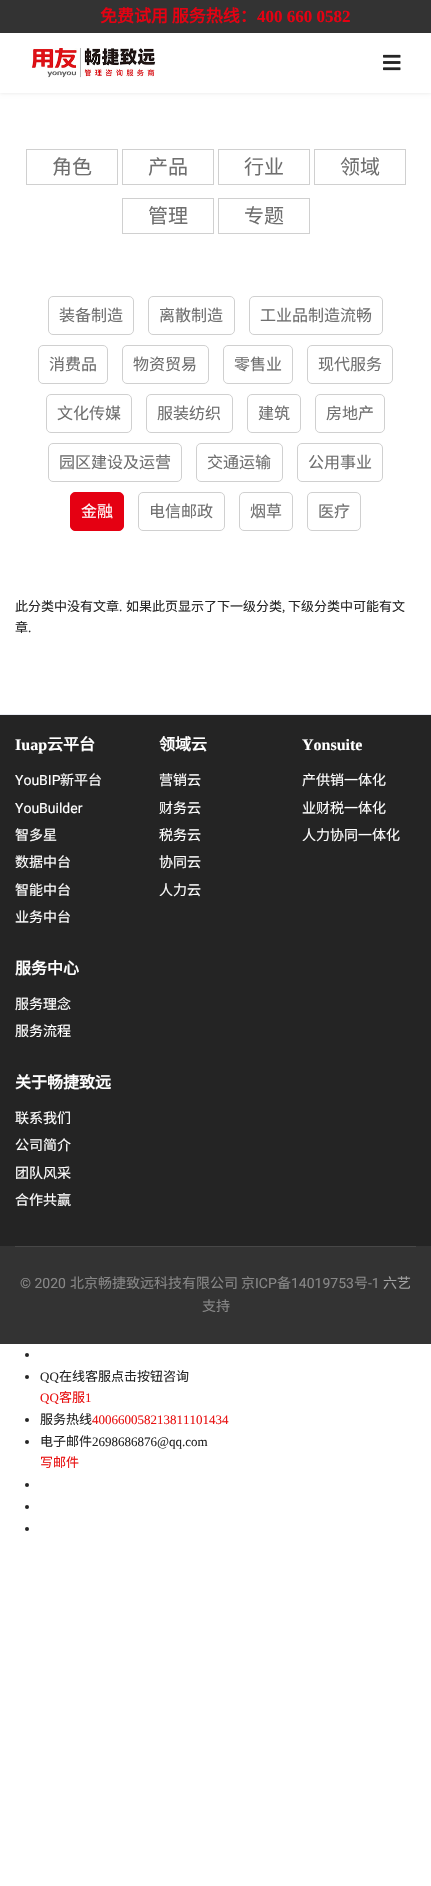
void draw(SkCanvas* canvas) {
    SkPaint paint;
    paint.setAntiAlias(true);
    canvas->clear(0xFFFFFFFF);
    paint.setColor(0xFF333333);
    canvas->drawRect(SkRect::MakeXYWH(0, 0, 431, 33), paint);
    SkFont font1(fontMgr->matchFamilyStyle("Noto Sans CJK SC", SkFontStyle::Bold()), 17);
    font1.setSubpixel(true);
    paint.setColor(0xFFE50112);
    canvas->drawString("免费试用 服务热线：", 100, 22, font1, paint);
    SkFont font2(fontMgr->matchFamilyStyle("Liberation Serif", SkFontStyle::Bold()), 17);
    font2.setSubpixel(true);
    canvas->drawString("400 660 0582", 257, 22, font2, paint);
    canvas->save();
    canvas->clipPath(SkPathBuilder(SkPathFillType::kEvenOdd).moveTo(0, 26).lineTo(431, 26).lineTo(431, 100).lineTo(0, 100).close().moveTo(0, 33).lineTo(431, 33).lineTo(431, 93).lineTo(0, 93).close().detach(), true);
    paint.setColor(0x1A000000);
    paint.setMaskFilter(SkMaskFilter::MakeBlur(kNormal_SkBlurStyle, 2));
    canvas->drawRect(SkRect::MakeXYWH(0, 33, 431, 60), paint);
    paint.setMaskFilter(nullptr);
    canvas->restore();
    canvas->drawImageRect(SkImages::DeferredFromEncodedData(SkData::MakeFromFileName("img1.png")), SkRect::MakeXYWH(30, 48, 126, 30), SkSamplingOptions());
    canvas->drawImageRect(SkImages::DeferredFromEncodedData(SkData::MakeFromFileName("img2.png")), SkRect::MakeXYWH(383, 54, 18, 17), SkSamplingOptions());
    paint.setStyle(SkPaint::kStroke_Style);
    paint.setStrokeWidth(1);
    paint.setColor(0xFFD0D0D0);
    canvas->drawRect(SkRect::MakeXYWH(26.5f, 149.5f, 91, 35), paint);
    SkFont font3(fontMgr->matchFamilyStyle("Noto Sans CJK SC", SkFontStyle::Normal()), 20);
    font3.setSubpixel(true);
    paint.setStyle(SkPaint::kFill_Style);
    paint.setColor(0xFF6F6F6F);
    canvas->drawString("角色", 52, 174, font3, paint);
    paint.setStyle(SkPaint::kStroke_Style);
    paint.setColor(0xFFD0D0D0);
    canvas->drawRect(SkRect::MakeXYWH(122.5f, 149.5f, 91, 35), paint);
    paint.setStyle(SkPaint::kFill_Style);
    paint.setColor(0xFF6F6F6F);
    canvas->drawString("产品", 148, 174, font3, paint);
    paint.setStyle(SkPaint::kStroke_Style);
    paint.setColor(0xFFD0D0D0);
    canvas->drawRect(SkRect::MakeXYWH(218.5f, 149.5f, 91, 35), paint);
    paint.setStyle(SkPaint::kFill_Style);
    paint.setColor(0xFF6F6F6F);
    canvas->drawString("行业", 244, 174, font3, paint);
    paint.setStyle(SkPaint::kStroke_Style);
    paint.setColor(0xFFD0D0D0);
    canvas->drawRect(SkRect::MakeXYWH(314.5f, 149.5f, 91, 35), paint);
    paint.setStyle(SkPaint::kFill_Style);
    paint.setColor(0xFF6F6F6F);
    canvas->drawString("领域", 340, 174, font3, paint);
    paint.setStyle(SkPaint::kStroke_Style);
    paint.setColor(0xFFD0D0D0);
    canvas->drawRect(SkRect::MakeXYWH(122.5f, 198.5f, 91, 35), paint);
    paint.setStyle(SkPaint::kFill_Style);
    paint.setColor(0xFF6F6F6F);
    canvas->drawString("管理", 148, 223, font3, paint);
    paint.setStyle(SkPaint::kStroke_Style);
    paint.setColor(0xFFD0D0D0);
    canvas->drawRect(SkRect::MakeXYWH(218.5f, 198.5f, 91, 35), paint);
    paint.setStyle(SkPaint::kFill_Style);
    paint.setColor(0xFF6F6F6F);
    canvas->drawString("专题", 244, 223, font3, paint);
    paint.setStyle(SkPaint::kStroke_Style);
    paint.setColor(0xFFD0D0D0);
    canvas->drawRoundRect(SkRect::MakeXYWH(48.5f, 296.5f, 85, 38), 4.5f, 4.5f, paint);
    SkFont font4(fontMgr->matchFamilyStyle("Noto Sans CJK SC", SkFontStyle::Normal()), 16);
    font4.setSubpixel(true);
    paint.setStyle(SkPaint::kFill_Style);
    paint.setColor(0xFF6F6F6F);
    canvas->drawString("装备制造", 59, 321, font4, paint);
    paint.setStyle(SkPaint::kStroke_Style);
    paint.setColor(0xFFD0D0D0);
    canvas->drawRoundRect(SkRect::MakeXYWH(148.5f, 296.5f, 86, 38), 4.5f, 4.5f, paint);
    paint.setStyle(SkPaint::kFill_Style);
    paint.setColor(0xFF6F6F6F);
    canvas->drawString("离散制造", 159, 321, font4, paint);
    paint.setStyle(SkPaint::kStroke_Style);
    paint.setColor(0xFFD0D0D0);
    canvas->drawRoundRect(SkRect::MakeXYWH(249.5f, 296.5f, 133, 38), 4.5f, 4.5f, paint);
    paint.setStyle(SkPaint::kFill_Style);
    paint.setColor(0xFF6F6F6F);
    canvas->drawString("工业品制造流畅", 260, 321, font4, paint);
    paint.setStyle(SkPaint::kStroke_Style);
    paint.setColor(0xFFD0D0D0);
    canvas->drawRoundRect(SkRect::MakeXYWH(38.5f, 345.5f, 69, 38), 4.5f, 4.5f, paint);
    paint.setStyle(SkPaint::kFill_Style);
    paint.setColor(0xFF6F6F6F);
    canvas->drawString("消费品", 49, 370, font4, paint);
    paint.setStyle(SkPaint::kStroke_Style);
    paint.setColor(0xFFD0D0D0);
    canvas->drawRoundRect(SkRect::MakeXYWH(122.5f, 345.5f, 86, 38), 4.5f, 4.5f, paint);
    paint.setStyle(SkPaint::kFill_Style);
    paint.setColor(0xFF6F6F6F);
    canvas->drawString("物资贸易", 133, 370, font4, paint);
    paint.setStyle(SkPaint::kStroke_Style);
    paint.setColor(0xFFD0D0D0);
    canvas->drawRoundRect(SkRect::MakeXYWH(223.5f, 345.5f, 69, 38), 4.5f, 4.5f, paint);
    paint.setStyle(SkPaint::kFill_Style);
    paint.setColor(0xFF6F6F6F);
    canvas->drawString("零售业", 234, 370, font4, paint);
    paint.setStyle(SkPaint::kStroke_Style);
    paint.setColor(0xFFD0D0D0);
    canvas->drawRoundRect(SkRect::MakeXYWH(307.5f, 345.5f, 85, 38), 4.5f, 4.5f, paint);
    paint.setStyle(SkPaint::kFill_Style);
    paint.setColor(0xFF6F6F6F);
    canvas->drawString("现代服务", 318, 370, font4, paint);
    paint.setStyle(SkPaint::kStroke_Style);
    paint.setColor(0xFFD0D0D0);
    canvas->drawRoundRect(SkRect::MakeXYWH(46.5f, 394.5f, 85, 38), 4.5f, 4.5f, paint);
    paint.setStyle(SkPaint::kFill_Style);
    paint.setColor(0xFF6F6F6F);
    canvas->drawString("文化传媒", 57, 419, font4, paint);
    paint.setStyle(SkPaint::kStroke_Style);
    paint.setColor(0xFFD0D0D0);
    canvas->drawRoundRect(SkRect::MakeXYWH(146.5f, 394.5f, 86, 38), 4.5f, 4.5f, paint);
    paint.setStyle(SkPaint::kFill_Style);
    paint.setColor(0xFF6F6F6F);
    canvas->drawString("服装纺织", 157, 419, font4, paint);
    paint.setStyle(SkPaint::kStroke_Style);
    paint.setColor(0xFFD0D0D0);
    canvas->drawRoundRect(SkRect::MakeXYWH(247.5f, 394.5f, 53, 38), 4.5f, 4.5f, paint);
    paint.setStyle(SkPaint::kFill_Style);
    paint.setColor(0xFF6F6F6F);
    canvas->drawString("建筑", 258, 419, font4, paint);
    paint.setStyle(SkPaint::kStroke_Style);
    paint.setColor(0xFFD0D0D0);
    canvas->drawRoundRect(SkRect::MakeXYWH(315.5f, 394.5f, 69, 38), 4.5f, 4.5f, paint);
    paint.setStyle(SkPaint::kFill_Style);
    paint.setColor(0xFF6F6F6F);
    canvas->drawString("房地产", 326, 419, font4, paint);
    paint.setStyle(SkPaint::kStroke_Style);
    paint.setColor(0xFFD0D0D0);
    canvas->drawRoundRect(SkRect::MakeXYWH(48.5f, 443.5f, 133, 38), 4.5f, 4.5f, paint);
    paint.setStyle(SkPaint::kFill_Style);
    paint.setColor(0xFF6F6F6F);
    canvas->drawString("园区建设及运营", 59, 468, font4, paint);
    paint.setStyle(SkPaint::kStroke_Style);
    paint.setColor(0xFFD0D0D0);
    canvas->drawRoundRect(SkRect::MakeXYWH(196.5f, 443.5f, 86, 38), 4.5f, 4.5f, paint);
    paint.setStyle(SkPaint::kFill_Style);
    paint.setColor(0xFF6F6F6F);
    canvas->drawString("交通运输", 207, 468, font4, paint);
    paint.setStyle(SkPaint::kStroke_Style);
    paint.setColor(0xFFD0D0D0);
    canvas->drawRoundRect(SkRect::MakeXYWH(297.5f, 443.5f, 85, 38), 4.5f, 4.5f, paint);
    paint.setStyle(SkPaint::kFill_Style);
    paint.setColor(0xFF6F6F6F);
    canvas->drawString("公用事业", 308, 468, font4, paint);
    paint.setColor(0xFFE50012);
    canvas->drawRoundRect(SkRect::MakeXYWH(70.5f, 492.5f, 53, 38), 4.5f, 4.5f, paint);
    paint.setStyle(SkPaint::kStroke_Style);
    canvas->drawRoundRect(SkRect::MakeXYWH(70.5f, 492.5f, 53, 38), 4.5f, 4.5f, paint);
    paint.setStyle(SkPaint::kFill_Style);
    paint.setColor(0xFFFFFFFF);
    canvas->drawString("金融", 81, 517, font4, paint);
    paint.setStyle(SkPaint::kStroke_Style);
    paint.setColor(0xFFD0D0D0);
    canvas->drawRoundRect(SkRect::MakeXYWH(138.5f, 492.5f, 86, 38), 4.5f, 4.5f, paint);
    paint.setStyle(SkPaint::kFill_Style);
    paint.setColor(0xFF6F6F6F);
    canvas->drawString("电信邮政", 149, 517, font4, paint);
    paint.setStyle(SkPaint::kStroke_Style);
    paint.setColor(0xFFD0D0D0);
    canvas->drawRoundRect(SkRect::MakeXYWH(239.5f, 492.5f, 53, 38), 4.5f, 4.5f, paint);
    paint.setStyle(SkPaint::kFill_Style);
    paint.setColor(0xFF6F6F6F);
    canvas->drawString("烟草", 250, 517, font4, paint);
    paint.setStyle(SkPaint::kStroke_Style);
    paint.setColor(0xFFD0D0D0);
    canvas->drawRoundRect(SkRect::MakeXYWH(307.5f, 492.5f, 53, 38), 4.5f, 4.5f, paint);
    paint.setStyle(SkPaint::kFill_Style);
    paint.setColor(0xFF6F6F6F);
    canvas->drawString("医疗", 318, 517, font4, paint);
    SkFont font5(fontMgr->matchFamilyStyle("Noto Sans CJK SC", SkFontStyle::Normal()), 13);
    font5.setSubpixel(true);
    paint.setColor(0xFF252525);
    canvas->drawString("此分类中没有文章", 15, 611, font5, paint);
    SkFont font6(fontMgr->matchFamilyStyle("Liberation Serif", SkFontStyle::Normal()), 13);
    font6.setSubpixel(true);
    canvas->drawString(".", 119, 611, font6, paint);
    canvas->drawString("如果此页显示了下一级分类", 126, 611, font5, paint);
    canvas->drawString(",", 282, 611, font6, paint);
    canvas->drawString("下级分类中可能有文", 288, 611, font5, paint);
    canvas->drawString("章", 15, 632, font5, paint);
    canvas->drawString(".", 28, 632, font6, paint);
    paint.setColor(0xFF242424);
    canvas->drawRect(SkRect::MakeXYWH(0, 715, 431, 531), paint);
    paint.setColor(0xFFEAECF3);
    canvas->drawRect(SkRect::MakeXYWH(0, 714, 431, 1), paint);
    SkFont font7(fontMgr->matchFamilyStyle("Liberation Serif", SkFontStyle::Bold()), 16);
    font7.setSubpixel(true);
    paint.setColor(0xFFFFFFFF);
    canvas->drawString("Iuap", 15, 750, font7, paint);
    SkFont font8(fontMgr->matchFamilyStyle("Noto Sans CJK SC", SkFontStyle::Bold()), 16);
    font8.setSubpixel(true);
    canvas->drawString("云平台", 47, 750, font8, paint);
    SkFont font9(fontMgr->matchFamilyStyle("Roboto", SkFontStyle::Normal()), 14);
    font9.setSubpixel(true);
    canvas->drawString("YouBIP", 15, 785, font9, paint);
    SkFont font10(fontMgr->matchFamilyStyle("Noto Sans CJK SC", SkFontStyle::Normal()), 14);
    font10.setSubpixel(true);
    canvas->drawString("新平台", 60, 785, font10, paint);
    canvas->drawString("YouBuilder", 15, 813, font9, paint);
    canvas->drawString("智多星", 15, 840, font10, paint);
    canvas->drawString("数据中台", 15, 867, font10, paint);
    canvas->drawString("智能中台", 15, 895, font10, paint);
    canvas->drawString("业务中台", 15, 922, font10, paint);
    canvas->drawString("领域云", 159, 750, font8, paint);
    canvas->drawString("营销云", 159, 785, font10, paint);
    canvas->drawString("财务云", 159, 813, font10, paint);
    canvas->drawString("税务云", 159, 840, font10, paint);
    canvas->drawString("协同云", 159, 867, font10, paint);
    canvas->drawString("人力云", 159, 895, font10, paint);
    canvas->drawString("Yonsuite", 302, 750, font7, paint);
    canvas->drawString("产供销一体化", 302, 785, font10, paint);
    canvas->drawString("业财税一体化", 302, 813, font10, paint);
    canvas->drawString("人力协同一体化", 302, 840, font10, paint);
    canvas->drawString("服务中心", 15, 974, font8, paint);
    canvas->drawString("服务理念", 15, 1009, font10, paint);
    canvas->drawString("服务流程", 15, 1036, font10, paint);
    canvas->drawString("关于畅捷致远", 15, 1088, font8, paint);
    canvas->drawString("联系我们", 15, 1123, font10, paint);
    canvas->drawString("公司简介", 15, 1150, font10, paint);
    canvas->drawString("团队风采", 15, 1178, font10, paint);
    canvas->drawString("合作共赢", 15, 1205, font10, paint);
    paint.setColor(0xFF333333);
    canvas->drawRect(SkRect::MakeXYWH(0, 1246, 431, 98), paint);
    paint.setColor(0xFF474747);
    canvas->drawRect(SkRect::MakeXYWH(15, 1246, 401, 1), paint);
    paint.setColor(0xFF878787);
    canvas->drawString("© 2020", 20, 1288, font9, paint);
    canvas->drawString("北京畅捷致远科技有限公司", 70, 1288, font10, paint);
    canvas->drawString("京", 241, 1288, font10, paint);
    canvas->drawString("ICP", 255, 1288, font9, paint);
    canvas->drawString("备", 277, 1288, font10, paint);
    canvas->drawString("14019753", 291, 1288, font9, paint);
    canvas->drawString("号", 354, 1288, font10, paint);
    canvas->drawString("-1", 368, 1288, font9, paint);
    paint.setColor(0xFFA2A2A2);
    canvas->drawString("六艺", 383, 1288, font10, paint);
    paint.setColor(0xFF878787);
    canvas->drawString("支持", 202, 1311, font10, paint);
    paint.setColor(0xFF252525);
    canvas->drawCircle(27, 1355, 2, paint);
    canvas->drawCircle(27, 1377, 2, paint);
    canvas->drawString("QQ", 40, 1381, font6, paint);
    canvas->drawString("在线客服点击按钮咨询", 59, 1381, font5, paint);
    paint.setColor(0xFFE81212);
    canvas->drawString("QQ", 40, 1402, font6, paint);
    canvas->drawString("客服", 59, 1402, font5, paint);
    canvas->drawString("1", 85, 1402, font6, paint);
    paint.setColor(0xFF252525);
    canvas->drawCircle(27, 1420, 2, paint);
    canvas->drawString("服务热线", 40, 1424, font5, paint);
    paint.setColor(0xFFE81212);
    canvas->drawString("400660058213811101434", 92, 1424, font6, paint);
    paint.setColor(0xFF252525);
    canvas->drawCircle(27, 1442, 2, paint);
    canvas->drawString("电子邮件", 40, 1446, font5, paint);
    canvas->drawString("2698686876@qq.com", 92, 1446, font6, paint);
    paint.setColor(0xFFE81212);
    canvas->drawString("写邮件", 40, 1467, font5, paint);
    paint.setColor(0xFF252525);
    canvas->drawCircle(27, 1485, 2, paint);
    canvas->drawCircle(27, 1507, 2, paint);
    canvas->drawCircle(27, 1529, 2, paint);
}
